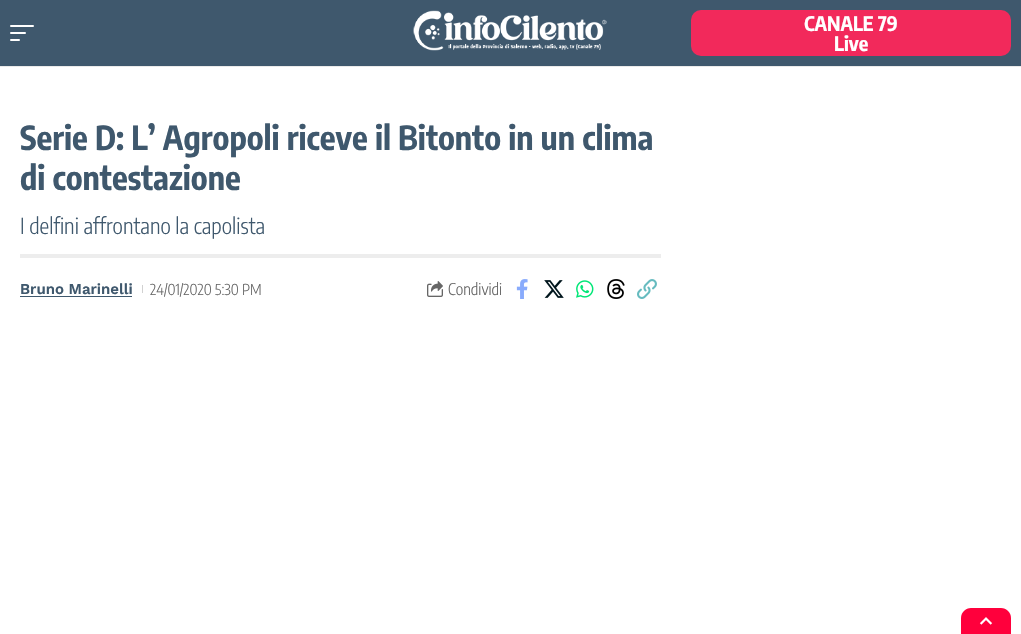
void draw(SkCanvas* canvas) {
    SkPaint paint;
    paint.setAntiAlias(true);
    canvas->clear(0xFFFFFFFF);
    paint.setColor(0xFFEAEAEA);
    canvas->drawRect(SkRect::MakeXYWH(0, 66, 1021, 1), paint);
    paint.setColor(0xFF3F586D);
    canvas->drawRect(SkRect::MakeXYWH(0, 0, 1021, 66), paint);
    paint.setColor(0xFFFFFFFF);
    canvas->drawRoundRect(SkRect::MakeXYWH(10, 25, 24, 2), 1, 1, paint);
    canvas->drawRoundRect(SkRect::MakeXYWH(10, 32, 16, 2), 1, 1, paint);
    canvas->drawRoundRect(SkRect::MakeXYWH(10, 39, 10, 2), 1, 1, paint);
    canvas->drawImageRect(SkImages::DeferredFromEncodedData(SkData::MakeFromFileName("img1.png")), SkRect::MakeXYWH(413, 10, 194, 41), SkSamplingOptions());
    paint.setColor(0xFFF2295B);
    canvas->drawRoundRect(SkRect::MakeXYWH(691, 10, 320, 46), 10, 10, paint);
    SkFont font1(fontMgr->matchFamilyStyle("Encode Sans Condensed", SkFontStyle::Bold()), 20);
    font1.setSubpixel(true);
    paint.setColor(0xFFFFFFFF);
    canvas->drawString("CANALE 79", 804, 31, font1, paint);
    canvas->drawString("Live", 834, 51, font1, paint);
    SkFont font2(fontMgr->matchFamilyStyle("Encode Sans Condensed", SkFontStyle::Bold()), 33);
    font2.setSubpixel(true);
    paint.setColor(0xFF3F586D);
    canvas->drawString("Serie D: L’ Agropoli riceve il Bitonto in un clima", 20, 150, font2, paint);
    canvas->drawString("di contestazione", 20, 190, font2, paint);
    SkFont font3(fontMgr->matchFamilyStyle("Encode Sans Condensed", SkFontStyle(300, SkFontStyle::kNormal_Width, SkFontStyle::kUpright_Slant)), 22);
    font3.setSubpixel(true);
    canvas->drawString("I delfini affrontano la capolista", 20, 234, font3, paint);
    paint.setColor(0xFFEDEDED);
    canvas->drawRect(SkRect::MakeXYWH(20, 254, 641, 4), paint);
    SkFont font4(fontMgr->matchFamilyStyle("Work Sans", SkFontStyle(600, SkFontStyle::kNormal_Width, SkFontStyle::kUpright_Slant)), 15);
    font4.setSubpixel(true);
    paint.setColor(0xFF3F586D);
    canvas->drawString("Bruno Marinelli", 20, 294, font4, paint);
    canvas->drawRect(SkRect::MakeXYWH(20, 296, 112, 1), paint);
    paint.setColor(0xFFD1D1D1);
    canvas->drawRect(SkRect::MakeXYWH(142, 285, 1, 8), paint);
    SkFont font5(fontMgr->matchFamilyStyle("Encode Sans Condensed", SkFontStyle(300, SkFontStyle::kNormal_Width, SkFontStyle::kUpright_Slant)), 15);
    font5.setSubpixel(true);
    paint.setColor(0xFF666666);
    canvas->drawString("24/01/2020 5:30 PM", 150, 295, font5, paint);
    canvas->drawImageRect(SkImages::DeferredFromEncodedData(SkData::MakeFromFileName("img2.png")), SkRect::MakeXYWH(427, 281, 16, 16), SkSamplingOptions());
    SkFont font6(fontMgr->matchFamilyStyle("Encode Sans Condensed", SkFontStyle(300, SkFontStyle::kNormal_Width, SkFontStyle::kUpright_Slant)), 16);
    font6.setSubpixel(true);
    canvas->drawString("Condividi", 448, 295, font6, paint);
    canvas->drawImageRect(SkImages::DeferredFromEncodedData(SkData::MakeFromFileName("img3.png")), SkRect::MakeXYWH(516, 279, 12, 20), SkSamplingOptions());
    canvas->drawImageRect(SkImages::DeferredFromEncodedData(SkData::MakeFromFileName("img4.png")), SkRect::MakeXYWH(544, 280, 20, 18), SkSamplingOptions());
    canvas->drawImageRect(SkImages::DeferredFromEncodedData(SkData::MakeFromFileName("img5.png")), SkRect::MakeXYWH(576, 280, 18, 18), SkSamplingOptions());
    canvas->drawImageRect(SkImages::DeferredFromEncodedData(SkData::MakeFromFileName("img6.png")), SkRect::MakeXYWH(607, 279, 18, 20), SkSamplingOptions());
    canvas->drawImageRect(SkImages::DeferredFromEncodedData(SkData::MakeFromFileName("img7.png")), SkRect::MakeXYWH(637, 279, 20, 20), SkSamplingOptions());
    paint.setColor(0xFFFF003C);
    canvas->drawPath(SkPathBuilder().moveTo(971, 608).lineTo(1001, 608).cubicTo(1006.5f, 608, 1011, 612.5f, 1011, 618).lineTo(1011, 634).lineTo(961, 634).lineTo(961, 618).cubicTo(961, 612.5f, 965.5f, 608, 971, 608).close().detach(), paint);
    canvas->drawImageRect(SkImages::DeferredFromEncodedData(SkData::MakeFromFileName("img8.png")), SkRect::MakeXYWH(979, 617, 14, 8), SkSamplingOptions());
}
